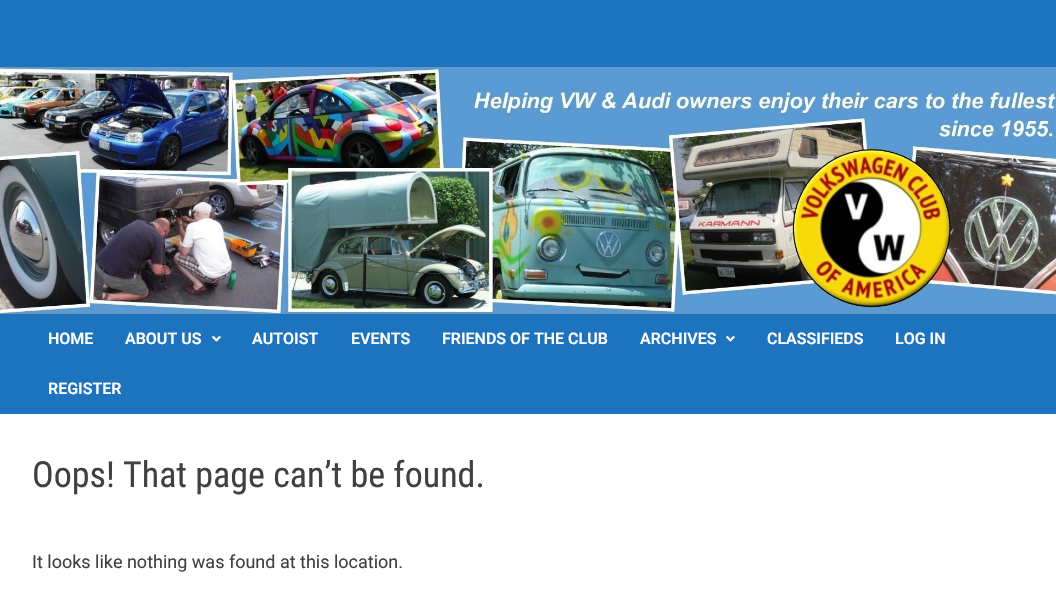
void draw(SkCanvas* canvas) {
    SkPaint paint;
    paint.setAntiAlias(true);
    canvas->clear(0xFFFFFFFF);
    paint.setColor(0xFF1E73BE);
    canvas->drawRect(SkRect::MakeXYWH(0, 0, 1056, 414), paint);
    canvas->drawImageRect(SkImages::DeferredFromEncodedData(SkData::MakeFromFileName("img1.png")), SkRect::MakeXYWH(0, 67, 1056, 247), SkSamplingOptions());
    SkFont font1(fontMgr->matchFamilyStyle("Roboto", SkFontStyle(600, SkFontStyle::kNormal_Width, SkFontStyle::kUpright_Slant)), 16);
    font1.setSubpixel(true);
    paint.setColor(0xFFFFFFFF);
    canvas->drawString("HOME", 48, 344, font1, paint);
    canvas->drawString("ABOUT US", 125, 344, font1, paint);
    canvas->drawImageRect(SkImages::DeferredFromEncodedData(SkData::MakeFromFileName("img2.png")), SkRect::MakeXYWH(212, 336, 9, 6), SkSamplingOptions());
    canvas->drawString("AUTOIST", 252, 344, font1, paint);
    canvas->drawString("EVENTS", 351, 344, font1, paint);
    canvas->drawString("FRIENDS OF THE CLUB", 442, 344, font1, paint);
    canvas->drawString("ARCHIVES", 640, 344, font1, paint);
    canvas->drawImageRect(SkImages::DeferredFromEncodedData(SkData::MakeFromFileName("img2.png")), SkRect::MakeXYWH(726, 336, 9, 6), SkSamplingOptions());
    canvas->drawString("CLASSIFIEDS", 767, 344, font1, paint);
    canvas->drawString("LOG IN", 895, 344, font1, paint);
    canvas->drawString("REGISTER", 48, 394, font1, paint);
    SkFont font2(fontMgr->matchFamilyStyle("Roboto Condensed", SkFontStyle::Normal()), 36);
    font2.setSubpixel(true);
    paint.setColor(0xFF404040);
    canvas->drawString("Oops! That page can’t be found.", 32, 487, font2, paint);
    SkFont font3(fontMgr->matchFamilyStyle("Roboto", SkFontStyle::Normal()), 18);
    font3.setSubpixel(true);
    canvas->drawString("It looks like nothing was found at this location.", 32, 568, font3, paint);
}
